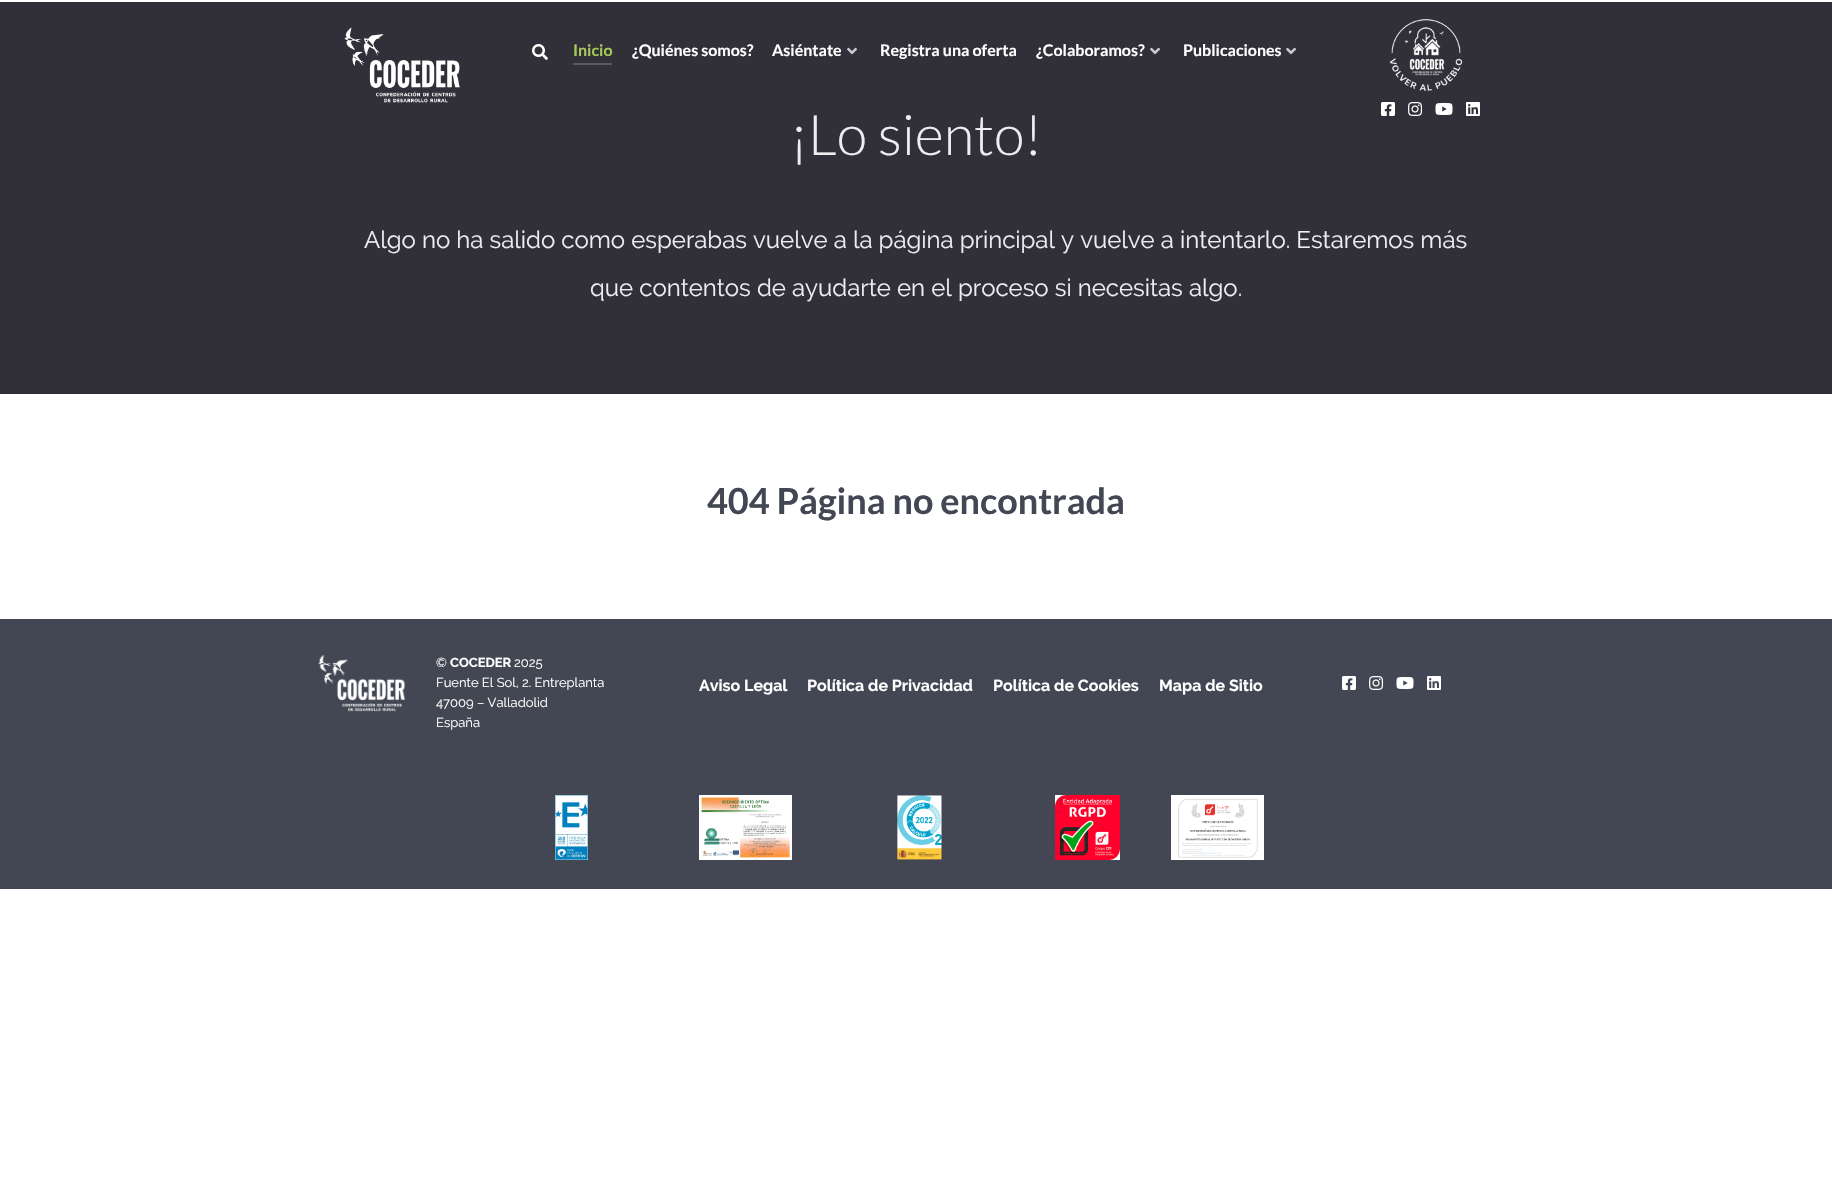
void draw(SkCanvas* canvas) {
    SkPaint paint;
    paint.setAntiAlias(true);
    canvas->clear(0xFFFFFFFF);
    paint.setColor(0xFF312F38);
    canvas->drawRect(SkRect::MakeXYWH(0, 2, 1832, 392), paint);
    canvas->drawImageRect(SkImages::DeferredFromEncodedData(SkData::MakeFromFileName("img1.png")), SkRect::MakeXYWH(344, 27, 116, 76), SkSamplingOptions());
    canvas->drawImageRect(SkImages::DeferredFromEncodedData(SkData::MakeFromFileName("img2.png")), SkRect::MakeXYWH(532, 44, 16, 16), SkSamplingOptions());
    paint.setColor(0xFF5A5960);
    canvas->drawRect(SkRect::MakeXYWH(573, 63, 39, 2), paint);
    SkFont font1(fontMgr->matchFamilyStyle("Lato", SkFontStyle::Bold()), 16);
    font1.setSubpixel(true);
    paint.setColor(0xFFA5CB57);
    canvas->drawString("Inicio", 573, 56, font1, paint);
    paint.setColor(0xFFFFFFFF);
    canvas->drawString("¿Quiénes somos?", 632, 56, font1, paint);
    canvas->drawString("Asiéntate", 772, 56, font1, paint);
    canvas->drawImageRect(SkImages::DeferredFromEncodedData(SkData::MakeFromFileName("img3.png")), SkRect::MakeXYWH(847, 47, 10, 8), SkSamplingOptions());
    canvas->drawString("Registra una oferta", 880, 56, font1, paint);
    canvas->drawString("¿Colaboramos?", 1036, 56, font1, paint);
    canvas->drawImageRect(SkImages::DeferredFromEncodedData(SkData::MakeFromFileName("img3.png")), SkRect::MakeXYWH(1150, 47, 10, 8), SkSamplingOptions());
    canvas->drawString("Publicaciones", 1183, 56, font1, paint);
    canvas->drawImageRect(SkImages::DeferredFromEncodedData(SkData::MakeFromFileName("img3.png")), SkRect::MakeXYWH(1286, 47, 10, 8), SkSamplingOptions());
    canvas->drawImageRect(SkImages::DeferredFromEncodedData(SkData::MakeFromFileName("img4.png")), SkRect::MakeXYWH(1389, 19, 74, 72), SkSamplingOptions());
    canvas->drawImageRect(SkImages::DeferredFromEncodedData(SkData::MakeFromFileName("img5.png")), SkRect::MakeXYWH(1381, 102, 14, 14), SkSamplingOptions());
    canvas->drawImageRect(SkImages::DeferredFromEncodedData(SkData::MakeFromFileName("img6.png")), SkRect::MakeXYWH(1408, 102, 15, 14), SkSamplingOptions());
    canvas->drawImageRect(SkImages::DeferredFromEncodedData(SkData::MakeFromFileName("img7.png")), SkRect::MakeXYWH(1435, 103, 18, 12), SkSamplingOptions());
    canvas->drawImageRect(SkImages::DeferredFromEncodedData(SkData::MakeFromFileName("img8.png")), SkRect::MakeXYWH(1466, 102, 14, 14), SkSamplingOptions());
    SkFont font2(fontMgr->matchFamilyStyle("Lato", SkFontStyle(300, SkFontStyle::kNormal_Width, SkFontStyle::kUpright_Slant)), 56);
    font2.setSubpixel(true);
    paint.setColor(0xFFECEEEF);
    canvas->drawString("¡Lo siento!", 790, 155, font2, paint);
    SkFont font3(fontMgr->matchFamilyStyle("Raleway", SkFontStyle::Normal()), 24);
    font3.setSubpixel(true);
    canvas->drawString("Algo no ha salido como esperabas vuelve a la página principal y vuelve a intentarlo. Estaremos más", 364, 248, font3, paint);
    canvas->drawString("que contentos de ayudarte en el proceso si necesitas algo.", 590, 296, font3, paint);
    SkFont font4(fontMgr->matchFamilyStyle("Lato", SkFontStyle::Bold()), 36);
    font4.setSubpixel(true);
    paint.setColor(0xFF424753);
    canvas->drawString("404 Página no encontrada", 707, 514, font4, paint);
    canvas->drawRect(SkRect::MakeXYWH(0, 619, 1832, 270), paint);
    canvas->drawImageRect(SkImages::DeferredFromEncodedData(SkData::MakeFromFileName("img9.png")), SkRect::MakeXYWH(318, 654, 88, 58), SkSamplingOptions());
    SkFont font5(fontMgr->matchFamilyStyle("Raleway", SkFontStyle::Normal()), 13);
    font5.setSubpixel(true);
    paint.setColor(0xFFFFFFFF);
    canvas->drawString("©", 436, 667, font5, paint);
    SkFont font6(fontMgr->matchFamilyStyle("Raleway", SkFontStyle::Bold()), 13);
    font6.setSubpixel(true);
    canvas->drawString("COCEDER", 450, 667, font6, paint);
    canvas->drawString("2025", 514, 667, font5, paint);
    canvas->drawString("Fuente El Sol, 2. Entreplanta", 436, 687, font5, paint);
    canvas->drawString("47009 – Valladolid", 436, 707, font5, paint);
    canvas->drawString("España", 436, 727, font5, paint);
    SkFont font7(fontMgr->matchFamilyStyle("Raleway", SkFontStyle::Bold()), 16);
    font7.setSubpixel(true);
    canvas->drawString("Aviso Legal", 699, 691, font7, paint);
    canvas->drawString("Política de Privacidad", 807, 691, font7, paint);
    canvas->drawString("Política de Cookies", 993, 691, font7, paint);
    canvas->drawString("Mapa de Sitio", 1159, 691, font7, paint);
    canvas->drawImageRect(SkImages::DeferredFromEncodedData(SkData::MakeFromFileName("img10.png")), SkRect::MakeXYWH(1342, 676, 14, 14), SkSamplingOptions());
    canvas->drawImageRect(SkImages::DeferredFromEncodedData(SkData::MakeFromFileName("img11.png")), SkRect::MakeXYWH(1369, 676, 15, 14), SkSamplingOptions());
    canvas->drawImageRect(SkImages::DeferredFromEncodedData(SkData::MakeFromFileName("img12.png")), SkRect::MakeXYWH(1396, 677, 18, 12), SkSamplingOptions());
    canvas->drawImageRect(SkImages::DeferredFromEncodedData(SkData::MakeFromFileName("img13.png")), SkRect::MakeXYWH(1427, 676, 14, 14), SkSamplingOptions());
    canvas->drawImageRect(SkImages::DeferredFromEncodedData(SkData::MakeFromFileName("img14.png")), SkRect::MakeXYWH(555, 795, 33, 65), SkSamplingOptions());
    canvas->drawImageRect(SkImages::DeferredFromEncodedData(SkData::MakeFromFileName("img15.png")), SkRect::MakeXYWH(699, 795, 93, 65), SkSamplingOptions());
    canvas->drawImageRect(SkImages::DeferredFromEncodedData(SkData::MakeFromFileName("img16.png")), SkRect::MakeXYWH(897, 795, 45, 65), SkSamplingOptions());
    canvas->drawImageRect(SkImages::DeferredFromEncodedData(SkData::MakeFromFileName("img17.png")), SkRect::MakeXYWH(1055, 795, 65, 65), SkSamplingOptions());
    canvas->drawImageRect(SkImages::DeferredFromEncodedData(SkData::MakeFromFileName("img18.png")), SkRect::MakeXYWH(1171, 795, 93, 65), SkSamplingOptions());
}
